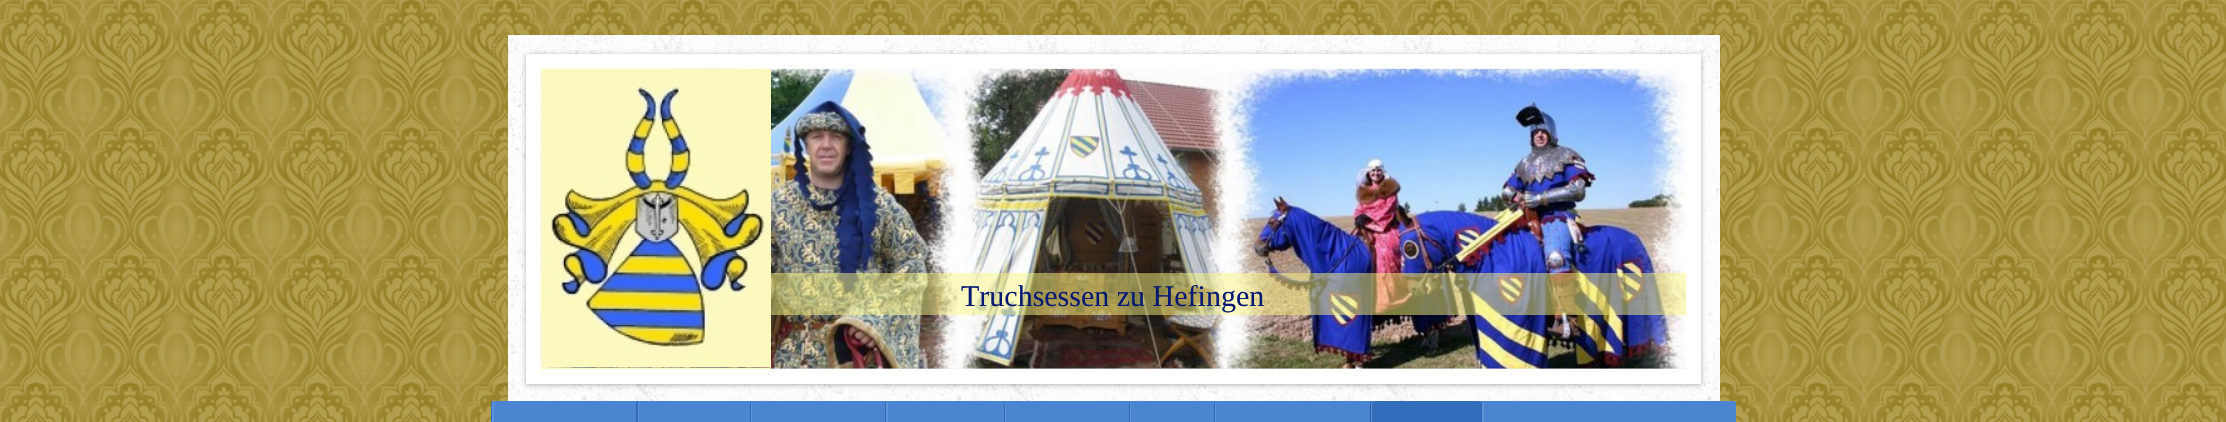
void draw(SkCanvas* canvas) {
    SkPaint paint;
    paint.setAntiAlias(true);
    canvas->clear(0xFFFFFFFF);
    canvas->drawImageRect(SkImages::DeferredFromEncodedData(SkData::MakeFromFileName("img1.png")), SkRect::MakeXYWH(0, 0, 2226, 422), SkSamplingOptions());
    paint.setColor(0xFFFFFFFF);
    canvas->drawRect(SkRect::MakeXYWH(508, 35, 1212, 366), paint);
    canvas->drawImageRect(SkImages::DeferredFromEncodedData(SkData::MakeFromFileName("img2.png")), SkRect::MakeXYWH(507, 35, 1213, 366), SkSamplingOptions());
    paint.setColor(0x4D000000);
    paint.setMaskFilter(SkMaskFilter::MakeBlur(kNormal_SkBlurStyle, 2.5f));
    canvas->drawRect(SkRect::MakeXYWH(526, 55, 1175, 330), paint);
    paint.setMaskFilter(nullptr);
    paint.setStyle(SkPaint::kStroke_Style);
    paint.setStrokeWidth(15);
    paint.setColor(0xFFFFFFFF);
    canvas->drawRect(SkRect::MakeXYWH(533.5f, 61.5f, 1160, 315), paint);
    canvas->drawImageRect(SkImages::DeferredFromEncodedData(SkData::MakeFromFileName("img3.png")), SkRect::MakeXYWH(541, 68, 1145, 1), SkSamplingOptions());
    paint.setStyle(SkPaint::kFill_Style);
    paint.setColor(0xFFEEEEEE);
    canvas->drawRect(SkRect::MakeXYWH(771, 368, 915, 1), paint);
    canvas->drawImageRect(SkImages::DeferredFromEncodedData(SkData::MakeFromFileName("img4.png")), SkRect::MakeXYWH(541, 68, 1145, 301), SkSamplingOptions());
    paint.setColor(0x80F9F681);
    canvas->drawRect(SkRect::MakeXYWH(542, 273, 1144, 42), paint);
    paint.setStyle(SkPaint::kStroke_Style);
    paint.setStrokeWidth(1);
    paint.setColor(0xFFFBF9BE);
    canvas->drawRect(SkRect::MakeXYWH(541.5f, 69.5f, 229, 299), paint);
    canvas->drawImageRect(SkImages::DeferredFromEncodedData(SkData::MakeFromFileName("img5.png")), SkRect::MakeXYWH(542, 70, 228, 298), SkSamplingOptions());
    SkFont font1(fontMgr->matchFamilyStyle("Liberation Serif", SkFontStyle::Normal()), 30);
    font1.setSubpixel(true);
    paint.setStyle(SkPaint::kFill_Style);
    paint.setColor(0xFF051972);
    canvas->drawString("Truchsessen zu Hefingen", 961, 306, font1, paint);
    paint.setColor(0xFF4B85D1);
    canvas->drawRoundRect(SkRect::MakeXYWH(491, 401, 1245, 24), 2.5f, 2.5f, paint);
    paint.setColor(0xFF5F93D6);
    canvas->drawPath(SkPathBuilder().moveTo(494, 401).cubicTo(492, 401, 491, 402, 491, 404).lineTo(491, 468).cubicTo(491, 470, 492, 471, 494, 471).lineTo(496, 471).cubicTo(495, 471, 494, 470, 494, 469).lineTo(494, 404).cubicTo(494, 402, 495, 401, 496, 401).close().detach(), paint);
    paint.setColor(0xFF2F6BBA);
    canvas->drawPath(SkPathBuilder().moveTo(494, 401).cubicTo(492, 401, 491, 402, 491, 404).lineTo(491, 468).cubicTo(491, 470, 492, 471, 494, 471).lineTo(495, 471).cubicTo(494, 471, 492, 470, 492, 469).lineTo(492, 404).cubicTo(492, 402, 494, 401, 495, 401).close().detach(), paint);
    paint.setColor(0xFF5F93D6);
    canvas->drawPath(SkPathBuilder().moveTo(638, 401).cubicTo(637, 401, 636, 402, 636, 404).lineTo(636, 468).cubicTo(636, 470, 637, 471, 638, 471).lineTo(641, 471).cubicTo(640, 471, 639, 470, 639, 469).lineTo(639, 404).cubicTo(639, 402, 640, 401, 641, 401).close().detach(), paint);
    paint.setColor(0xFF2F6BBA);
    canvas->drawPath(SkPathBuilder().moveTo(638, 401).cubicTo(637, 401, 636, 402, 636, 404).lineTo(636, 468).cubicTo(636, 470, 637, 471, 638, 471).lineTo(640, 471).cubicTo(639, 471, 638, 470, 638, 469).lineTo(638, 404).cubicTo(638, 402, 639, 401, 640, 401).close().detach(), paint);
    paint.setColor(0xFF5F93D6);
    canvas->drawPath(SkPathBuilder().moveTo(752, 401).cubicTo(751, 401, 750, 402, 750, 404).lineTo(750, 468).cubicTo(750, 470, 751, 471, 752, 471).lineTo(755, 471).cubicTo(754, 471, 752, 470, 752, 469).lineTo(752, 404).cubicTo(752, 402, 754, 401, 755, 401).close().detach(), paint);
    paint.setColor(0xFF2F6BBA);
    canvas->drawPath(SkPathBuilder().moveTo(752, 401).cubicTo(751, 401, 750, 402, 750, 404).lineTo(750, 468).cubicTo(750, 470, 751, 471, 752, 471).lineTo(754, 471).cubicTo(752, 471, 751, 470, 751, 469).lineTo(751, 404).cubicTo(751, 402, 752, 401, 754, 401).close().detach(), paint);
    paint.setColor(0xFF5F93D6);
    canvas->drawPath(SkPathBuilder().moveTo(888, 401).cubicTo(886, 401, 885, 402, 885, 404).lineTo(885, 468).cubicTo(885, 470, 886, 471, 888, 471).lineTo(890, 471).cubicTo(889, 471, 888, 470, 888, 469).lineTo(888, 404).cubicTo(888, 402, 889, 401, 890, 401).close().detach(), paint);
    paint.setColor(0xFF2F6BBA);
    canvas->drawPath(SkPathBuilder().moveTo(888, 401).cubicTo(886, 401, 885, 402, 885, 404).lineTo(885, 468).cubicTo(885, 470, 886, 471, 888, 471).lineTo(889, 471).cubicTo(887, 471, 886, 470, 886, 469).lineTo(886, 404).cubicTo(886, 402, 887, 401, 889, 401).close().detach(), paint);
    paint.setColor(0xFF5F93D6);
    canvas->drawPath(SkPathBuilder().moveTo(1006, 401).cubicTo(1005, 401, 1004, 402, 1004, 404).lineTo(1004, 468).cubicTo(1004, 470, 1005, 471, 1006, 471).lineTo(1009, 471).cubicTo(1007, 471, 1006, 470, 1006, 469).lineTo(1006, 404).cubicTo(1006, 402, 1007, 401, 1009, 401).close().detach(), paint);
    paint.setColor(0xFF2F6BBA);
    canvas->drawPath(SkPathBuilder().moveTo(1006, 401).cubicTo(1005, 401, 1004, 402, 1004, 404).lineTo(1004, 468).cubicTo(1004, 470, 1005, 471, 1006, 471).lineTo(1008, 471).cubicTo(1006, 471, 1005, 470, 1005, 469).lineTo(1005, 404).cubicTo(1005, 402, 1006, 401, 1008, 401).close().detach(), paint);
    paint.setColor(0xFF5F93D6);
    canvas->drawPath(SkPathBuilder().moveTo(1132, 401).cubicTo(1130, 401, 1129, 402, 1129, 404).lineTo(1129, 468).cubicTo(1129, 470, 1130, 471, 1132, 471).lineTo(1134, 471).cubicTo(1132, 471, 1131, 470, 1131, 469).lineTo(1131, 404).cubicTo(1131, 402, 1132, 401, 1134, 401).close().detach(), paint);
    paint.setColor(0xFF2F6BBA);
    canvas->drawPath(SkPathBuilder().moveTo(1132, 401).cubicTo(1130, 401, 1129, 402, 1129, 404).lineTo(1129, 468).cubicTo(1129, 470, 1130, 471, 1132, 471).cubicTo(1131, 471, 1130, 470, 1130, 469).lineTo(1130, 404).cubicTo(1130, 402, 1131, 401, 1132, 401).close().detach(), paint);
    paint.setColor(0xFF5F93D6);
    canvas->drawPath(SkPathBuilder().moveTo(1216, 401).cubicTo(1215, 401, 1214, 402, 1214, 404).lineTo(1214, 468).cubicTo(1214, 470, 1215, 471, 1216, 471).lineTo(1219, 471).cubicTo(1217, 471, 1216, 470, 1216, 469).lineTo(1216, 404).cubicTo(1216, 402, 1217, 401, 1219, 401).close().detach(), paint);
    paint.setColor(0xFF2F6BBA);
    canvas->drawPath(SkPathBuilder().moveTo(1216, 401).cubicTo(1215, 401, 1214, 402, 1214, 404).lineTo(1214, 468).cubicTo(1214, 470, 1215, 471, 1216, 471).lineTo(1218, 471).cubicTo(1216, 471, 1215, 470, 1215, 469).lineTo(1215, 404).cubicTo(1215, 402, 1216, 401, 1218, 401).close().detach(), paint);
    paint.setColor(0xFF326EBC);
    canvas->drawRoundRect(SkRect::MakeXYWH(1370, 401, 111, 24), 2.5f, 2.5f, paint);
    paint.setColor(0xFF5F93D6);
    canvas->drawPath(SkPathBuilder().moveTo(1372, 401).cubicTo(1371, 401, 1370, 402, 1370, 404).lineTo(1370, 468).cubicTo(1370, 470, 1371, 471, 1372, 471).lineTo(1375, 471).cubicTo(1374, 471, 1372, 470, 1372, 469).lineTo(1372, 404).cubicTo(1372, 402, 1374, 401, 1375, 401).close().detach(), paint);
    paint.setColor(0xFF2A5B9C);
    canvas->drawPath(SkPathBuilder().moveTo(1372, 401).cubicTo(1371, 401, 1370, 402, 1370, 404).lineTo(1370, 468).cubicTo(1370, 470, 1371, 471, 1372, 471).lineTo(1374, 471).cubicTo(1372, 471, 1371, 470, 1371, 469).lineTo(1371, 404).cubicTo(1371, 402, 1372, 401, 1374, 401).close().detach(), paint);
    paint.setColor(0xFF5F93D6);
    canvas->drawPath(SkPathBuilder().moveTo(1484, 401).cubicTo(1482, 401, 1481, 402, 1481, 404).lineTo(1481, 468).cubicTo(1481, 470, 1482, 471, 1484, 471).lineTo(1486, 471).cubicTo(1485, 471, 1484, 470, 1484, 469).lineTo(1484, 404).cubicTo(1484, 402, 1485, 401, 1486, 401).close().detach(), paint);
    paint.setColor(0xFF2F6BBA);
    canvas->drawPath(SkPathBuilder().moveTo(1484, 401).cubicTo(1482, 401, 1481, 402, 1481, 404).lineTo(1481, 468).cubicTo(1481, 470, 1482, 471, 1484, 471).lineTo(1485, 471).cubicTo(1484, 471, 1482, 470, 1482, 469).lineTo(1482, 404).cubicTo(1482, 402, 1484, 401, 1485, 401).close().detach(), paint);
}
